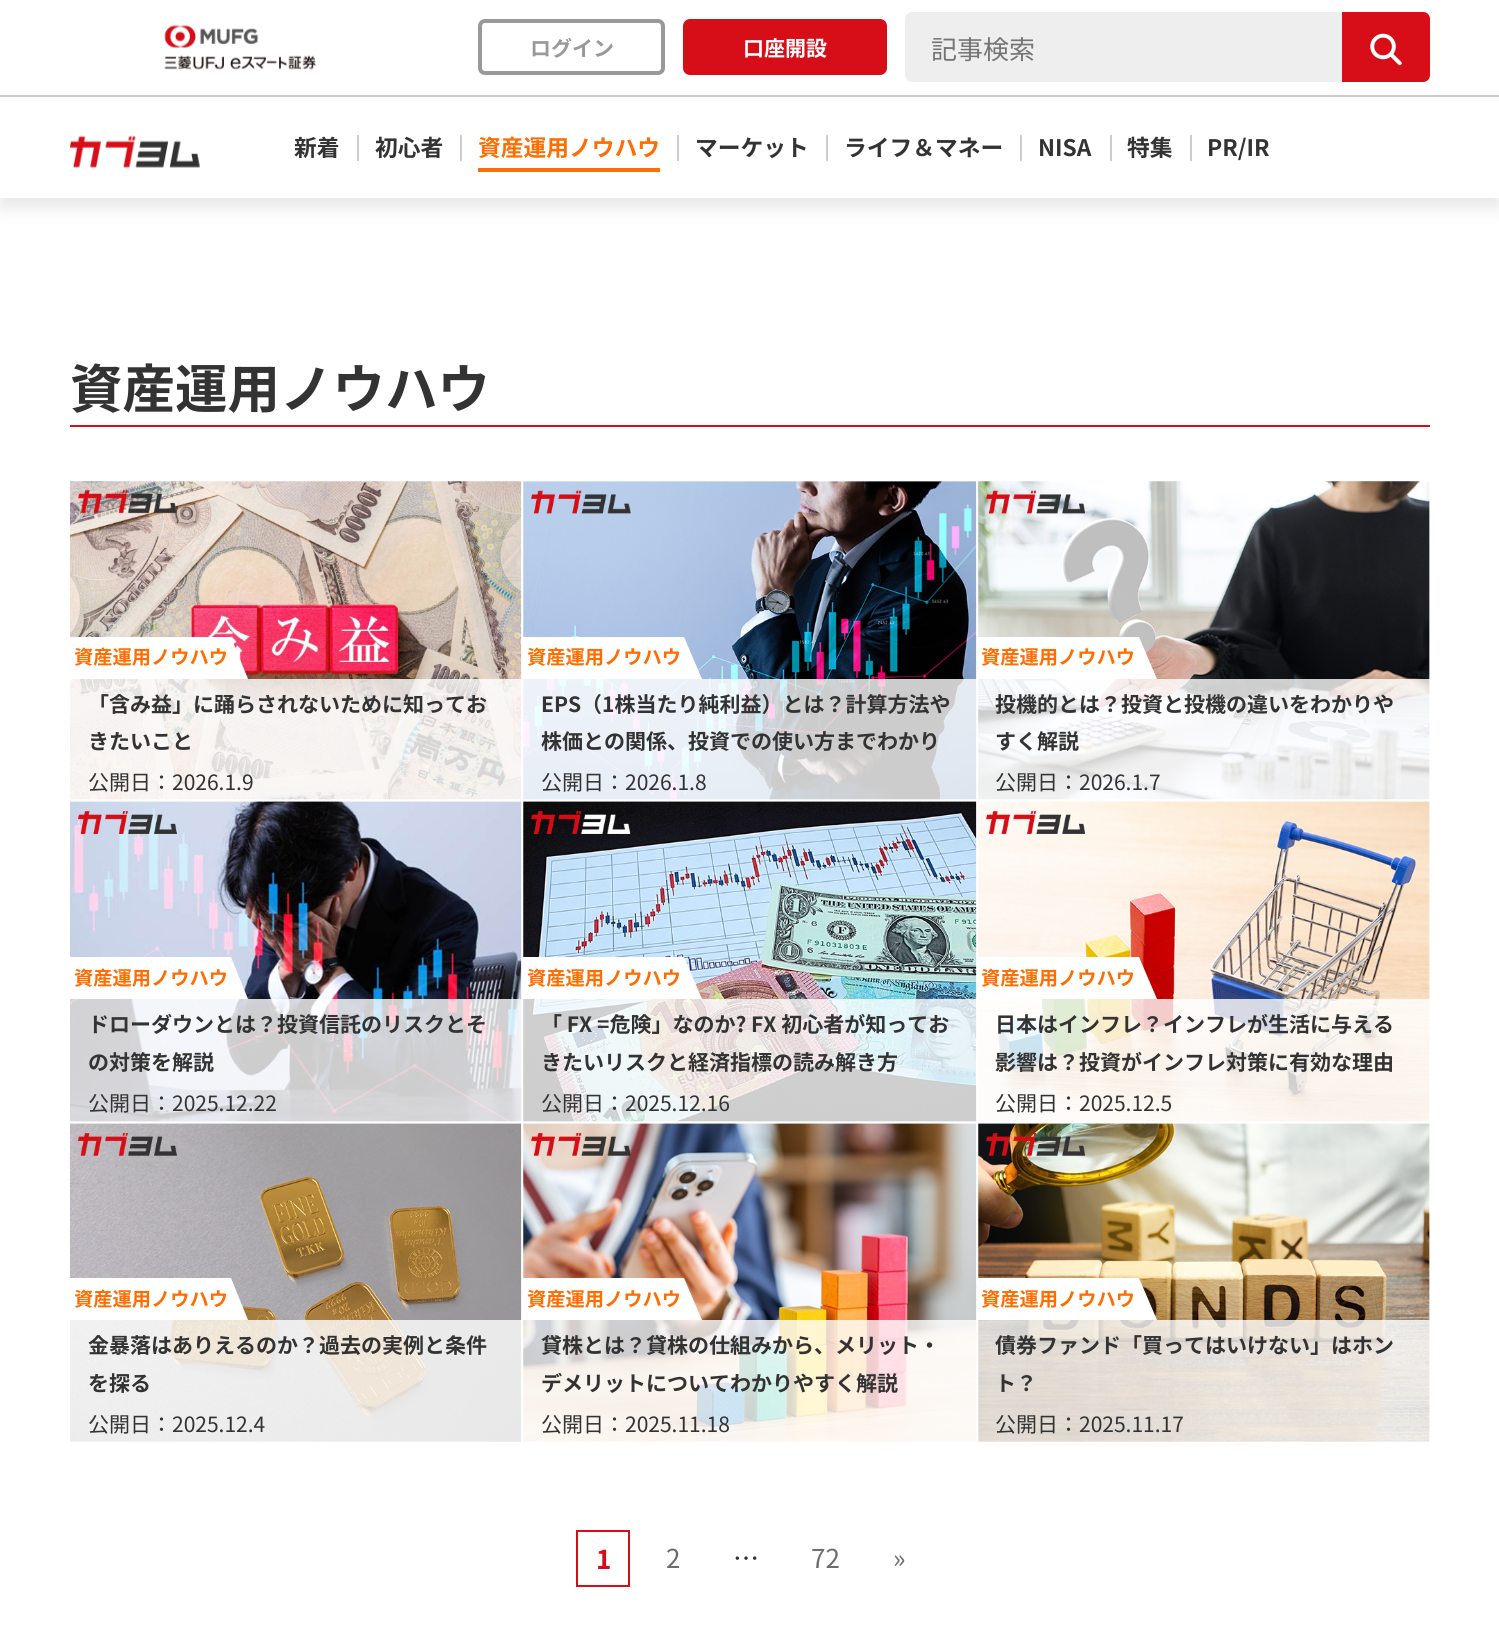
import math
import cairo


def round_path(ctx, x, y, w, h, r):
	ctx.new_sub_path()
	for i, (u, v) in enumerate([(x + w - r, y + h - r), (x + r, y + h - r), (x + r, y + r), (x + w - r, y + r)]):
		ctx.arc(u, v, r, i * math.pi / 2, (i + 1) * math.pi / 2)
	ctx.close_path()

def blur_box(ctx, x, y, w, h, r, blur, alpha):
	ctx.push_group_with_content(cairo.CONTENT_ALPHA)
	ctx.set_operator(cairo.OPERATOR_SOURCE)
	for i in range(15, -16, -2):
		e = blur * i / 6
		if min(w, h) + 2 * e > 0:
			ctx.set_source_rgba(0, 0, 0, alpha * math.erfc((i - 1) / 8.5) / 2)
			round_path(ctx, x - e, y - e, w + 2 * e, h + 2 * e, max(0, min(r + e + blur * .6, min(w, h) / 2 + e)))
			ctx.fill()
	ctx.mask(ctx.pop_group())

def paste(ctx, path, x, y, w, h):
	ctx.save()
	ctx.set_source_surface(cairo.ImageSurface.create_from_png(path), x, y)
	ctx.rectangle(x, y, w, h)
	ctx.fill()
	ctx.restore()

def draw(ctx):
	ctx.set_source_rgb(1, 1, 1)
	ctx.paint()
	ctx.set_source_rgb(0, 0, 0)
	blur_box(ctx, 0, 9, 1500, 198, 0, 9, 0.1)
	ctx.set_source_rgb(1, 1, 1)
	ctx.rectangle(0, 0, 1499, 198)
	ctx.fill()
	ctx.set_source_rgb(0.8, 0.8, 0.8)
	ctx.rectangle(0, 95, 1499, 2)
	ctx.fill()
	paste(ctx, 'media/1.png', 164, 24, 152, 46)
	round_path(ctx, 480, 21, 183, 52, 5)
	ctx.set_source_rgb(0.6, 0.6, 0.6)
	ctx.set_line_width(4)
	ctx.stroke()
	ctx.select_font_face('Noto Sans JP', cairo.FONT_SLANT_NORMAL, cairo.FONT_WEIGHT_BOLD)
	ctx.set_font_size(21)
	ctx.move_to(530, 56)
	ctx.show_text('ログイン')
	ctx.set_source_rgb(0.843, 0.051, 0.094)
	round_path(ctx, 683, 19, 204, 56, 7)
	ctx.fill()
	ctx.set_source_rgb(1, 1, 1)
	ctx.move_to(743, 56)
	ctx.show_text('口座開設')
	ctx.set_source_rgb(0.933, 0.933, 0.933)
	ctx.new_path()
	ctx.move_to(912, 12)
	ctx.line_to(1342, 12)
	ctx.line_to(1342, 82)
	ctx.line_to(912, 82)
	ctx.curve_to(908, 82, 905, 79, 905, 75)
	ctx.line_to(905, 19)
	ctx.curve_to(905, 15, 908, 12, 912, 12)
	ctx.close_path()
	ctx.fill()
	ctx.select_font_face('Noto Sans JP')
	ctx.set_font_size(26)
	ctx.set_source_rgb(0.459, 0.459, 0.459)
	ctx.move_to(931, 59)
	ctx.show_text('記事検索')
	ctx.set_source_rgb(0.843, 0.051, 0.094)
	ctx.new_path()
	ctx.move_to(1342, 12)
	ctx.line_to(1423, 12)
	ctx.curve_to(1427, 12, 1430, 15, 1430, 19)
	ctx.line_to(1430, 75)
	ctx.curve_to(1430, 79, 1427, 82, 1423, 82)
	ctx.line_to(1342, 82)
	ctx.close_path()
	ctx.fill()
	paste(ctx, 'media/2.png', 1370, 33, 32, 33)
	paste(ctx, 'media/3.png', 70, 135, 130, 33)
	ctx.select_font_face('Noto Sans JP', cairo.FONT_SLANT_NORMAL, cairo.FONT_WEIGHT_BOLD)
	ctx.set_font_size(22.75)
	ctx.set_source_rgb(0.2, 0.2, 0.2)
	ctx.move_to(294, 156)
	ctx.show_text('新着')
	ctx.set_source_rgb(0.8, 0.8, 0.8)
	ctx.rectangle(357, 135, 2, 26)
	ctx.fill()
	ctx.set_source_rgb(0.2, 0.2, 0.2)
	ctx.move_to(375, 156)
	ctx.show_text('初心者')
	ctx.set_source_rgb(0.8, 0.8, 0.8)
	ctx.rectangle(460, 135, 2, 26)
	ctx.fill()
	ctx.set_source_rgb(1, 0.424, 0)
	ctx.move_to(478, 156)
	ctx.show_text('資産運用ノウハウ')
	ctx.rectangle(478, 168, 182, 4)
	ctx.fill()
	ctx.set_source_rgb(0.8, 0.8, 0.8)
	ctx.rectangle(677, 135, 2, 26)
	ctx.fill()
	ctx.set_source_rgb(0.2, 0.2, 0.2)
	ctx.move_to(695, 156)
	ctx.show_text('マーケット')
	ctx.set_source_rgb(0.8, 0.8, 0.8)
	ctx.rectangle(826, 135, 2, 26)
	ctx.fill()
	ctx.set_source_rgb(0.2, 0.2, 0.2)
	ctx.move_to(844, 156)
	ctx.show_text('ライフ＆マネー')
	ctx.set_source_rgb(0.8, 0.8, 0.8)
	ctx.rectangle(1020, 135, 2, 26)
	ctx.fill()
	ctx.set_source_rgb(0.2, 0.2, 0.2)
	ctx.move_to(1038, 156)
	ctx.show_text('NISA')
	ctx.set_source_rgb(0.8, 0.8, 0.8)
	ctx.rectangle(1110, 135, 2, 26)
	ctx.fill()
	ctx.set_source_rgb(0.2, 0.2, 0.2)
	ctx.move_to(1127, 156)
	ctx.show_text('特集')
	ctx.set_source_rgb(0.8, 0.8, 0.8)
	ctx.rectangle(1190, 135, 2, 26)
	ctx.fill()
	ctx.set_source_rgb(0.2, 0.2, 0.2)
	ctx.move_to(1207, 156)
	ctx.show_text('PR/IR')
	ctx.set_source_rgb(0.843, 0.051, 0.094)
	ctx.rectangle(70, 425, 1360, 2)
	ctx.fill()
	ctx.set_font_size(52.5)
	ctx.set_source_rgb(0.2, 0.2, 0.2)
	ctx.move_to(70, 408)
	ctx.show_text('資産運用ノウハウ')
	paste(ctx, 'media/4.png', 70, 481, 452, 319)
	ctx.set_source_rgb(1, 1, 1)
	ctx.rectangle(70, 637, 161, 42)
	ctx.fill()
	ctx.set_font_size(19.25)
	ctx.set_source_rgb(1, 0.424, 0)
	ctx.move_to(74, 664)
	ctx.show_text('資産運用ノウハウ')
	ctx.set_source_rgb(1, 1, 1)
	ctx.new_path()
	ctx.move_to(231, 679)
	ctx.line_to(231, 637)
	ctx.line_to(248, 679)
	ctx.close_path()
	ctx.fill()
	ctx.set_source_rgba(1, 1, 1, 0.8)
	ctx.rectangle(70, 679, 452, 84)
	ctx.fill()
	ctx.set_font_size(21)
	ctx.set_source_rgb(0.2, 0.2, 0.2)
	ctx.move_to(88, 712)
	ctx.show_text('「含み益」に踊らされないために知ってお')
	ctx.move_to(88, 749)
	ctx.show_text('きたいこと')
	ctx.set_source_rgba(1, 1, 1, 0.8)
	ctx.rectangle(70, 763, 452, 37)
	ctx.fill()
	ctx.select_font_face('Noto Sans JP')
	ctx.set_source_rgb(0.2, 0.2, 0.2)
	ctx.move_to(88, 790)
	ctx.show_text('公開日：2026.1.9')
	paste(ctx, 'media/5.png', 523, 481, 454, 319)
	ctx.set_source_rgb(1, 1, 1)
	ctx.rectangle(523, 637, 161, 42)
	ctx.fill()
	ctx.select_font_face('Noto Sans JP', cairo.FONT_SLANT_NORMAL, cairo.FONT_WEIGHT_BOLD)
	ctx.set_font_size(19.25)
	ctx.set_source_rgb(1, 0.424, 0)
	ctx.move_to(527, 664)
	ctx.show_text('資産運用ノウハウ')
	ctx.set_source_rgb(1, 1, 1)
	ctx.new_path()
	ctx.move_to(684, 679)
	ctx.line_to(684, 637)
	ctx.line_to(702, 679)
	ctx.close_path()
	ctx.fill()
	ctx.set_source_rgba(1, 1, 1, 0.8)
	ctx.rectangle(523, 679, 454, 84)
	ctx.fill()
	ctx.set_font_size(21)
	ctx.set_source_rgb(0.2, 0.2, 0.2)
	ctx.move_to(541, 712)
	ctx.show_text('EPS（1株当たり純利益）とは？計算方法や')
	ctx.move_to(541, 749)
	ctx.show_text('株価との関係、投資での使い方までわかり')
	ctx.set_source_rgba(1, 1, 1, 0.8)
	ctx.rectangle(523, 763, 454, 37)
	ctx.fill()
	ctx.select_font_face('Noto Sans JP')
	ctx.set_source_rgb(0.2, 0.2, 0.2)
	ctx.move_to(541, 790)
	ctx.show_text('公開日：2026.1.8')
	paste(ctx, 'media/6.png', 978, 481, 452, 319)
	ctx.set_source_rgb(1, 1, 1)
	ctx.rectangle(978, 637, 161, 42)
	ctx.fill()
	ctx.select_font_face('Noto Sans JP', cairo.FONT_SLANT_NORMAL, cairo.FONT_WEIGHT_BOLD)
	ctx.set_font_size(19.25)
	ctx.set_source_rgb(1, 0.424, 0)
	ctx.move_to(981, 664)
	ctx.show_text('資産運用ノウハウ')
	ctx.set_source_rgb(1, 1, 1)
	ctx.new_path()
	ctx.move_to(1139, 679)
	ctx.line_to(1139, 637)
	ctx.line_to(1157, 679)
	ctx.close_path()
	ctx.fill()
	ctx.set_source_rgba(1, 1, 1, 0.8)
	ctx.rectangle(978, 679, 452, 84)
	ctx.fill()
	ctx.set_font_size(21)
	ctx.set_source_rgb(0.2, 0.2, 0.2)
	ctx.move_to(995, 712)
	ctx.show_text('投機的とは？投資と投機の違いをわかりや')
	ctx.move_to(995, 749)
	ctx.show_text('すく解説')
	ctx.set_source_rgba(1, 1, 1, 0.8)
	ctx.rectangle(978, 763, 452, 37)
	ctx.fill()
	ctx.select_font_face('Noto Sans JP')
	ctx.set_source_rgb(0.2, 0.2, 0.2)
	ctx.move_to(995, 790)
	ctx.show_text('公開日：2026.1.7')
	paste(ctx, 'media/7.png', 70, 801, 452, 321)
	ctx.set_source_rgb(1, 1, 1)
	ctx.rectangle(70, 957, 161, 42)
	ctx.fill()
	ctx.select_font_face('Noto Sans JP', cairo.FONT_SLANT_NORMAL, cairo.FONT_WEIGHT_BOLD)
	ctx.set_font_size(19.25)
	ctx.set_source_rgb(1, 0.424, 0)
	ctx.move_to(74, 985)
	ctx.show_text('資産運用ノウハウ')
	ctx.set_source_rgb(1, 1, 1)
	ctx.new_path()
	ctx.move_to(231, 999)
	ctx.line_to(231, 957)
	ctx.line_to(248, 999)
	ctx.close_path()
	ctx.fill()
	ctx.set_source_rgba(1, 1, 1, 0.8)
	ctx.rectangle(70, 999, 452, 84)
	ctx.fill()
	ctx.set_font_size(21)
	ctx.set_source_rgb(0.2, 0.2, 0.2)
	ctx.move_to(88, 1032)
	ctx.show_text('ドローダウンとは？投資信託のリスクとそ')
	ctx.move_to(88, 1070)
	ctx.show_text('の対策を解説')
	ctx.set_source_rgba(1, 1, 1, 0.8)
	ctx.rectangle(70, 1083, 452, 39)
	ctx.fill()
	ctx.select_font_face('Noto Sans JP')
	ctx.set_source_rgb(0.2, 0.2, 0.2)
	ctx.move_to(88, 1111)
	ctx.show_text('公開日：2025.12.22')
	paste(ctx, 'media/8.png', 523, 801, 454, 321)
	ctx.set_source_rgb(1, 1, 1)
	ctx.rectangle(523, 957, 161, 42)
	ctx.fill()
	ctx.select_font_face('Noto Sans JP', cairo.FONT_SLANT_NORMAL, cairo.FONT_WEIGHT_BOLD)
	ctx.set_font_size(19.25)
	ctx.set_source_rgb(1, 0.424, 0)
	ctx.move_to(527, 985)
	ctx.show_text('資産運用ノウハウ')
	ctx.set_source_rgb(1, 1, 1)
	ctx.new_path()
	ctx.move_to(684, 999)
	ctx.line_to(684, 957)
	ctx.line_to(702, 999)
	ctx.close_path()
	ctx.fill()
	ctx.set_source_rgba(1, 1, 1, 0.8)
	ctx.rectangle(523, 999, 454, 84)
	ctx.fill()
	ctx.set_font_size(21)
	ctx.set_source_rgb(0.2, 0.2, 0.2)
	ctx.move_to(541, 1032)
	ctx.show_text('「 FX =危険」なのか? FX 初心者が知ってお')
	ctx.move_to(541, 1070)
	ctx.show_text('きたいリスクと経済指標の読み解き方')
	ctx.set_source_rgba(1, 1, 1, 0.8)
	ctx.rectangle(523, 1083, 454, 39)
	ctx.fill()
	ctx.select_font_face('Noto Sans JP')
	ctx.set_source_rgb(0.2, 0.2, 0.2)
	ctx.move_to(541, 1111)
	ctx.show_text('公開日：2025.12.16')
	paste(ctx, 'media/9.png', 978, 801, 452, 321)
	ctx.set_source_rgb(1, 1, 1)
	ctx.rectangle(978, 957, 161, 42)
	ctx.fill()
	ctx.select_font_face('Noto Sans JP', cairo.FONT_SLANT_NORMAL, cairo.FONT_WEIGHT_BOLD)
	ctx.set_font_size(19.25)
	ctx.set_source_rgb(1, 0.424, 0)
	ctx.move_to(981, 985)
	ctx.show_text('資産運用ノウハウ')
	ctx.set_source_rgb(1, 1, 1)
	ctx.new_path()
	ctx.move_to(1139, 999)
	ctx.line_to(1139, 957)
	ctx.line_to(1157, 999)
	ctx.close_path()
	ctx.fill()
	ctx.set_source_rgba(1, 1, 1, 0.8)
	ctx.rectangle(978, 999, 452, 84)
	ctx.fill()
	ctx.set_font_size(21)
	ctx.set_source_rgb(0.2, 0.2, 0.2)
	ctx.move_to(995, 1032)
	ctx.show_text('日本はインフレ？インフレが生活に与える')
	ctx.move_to(995, 1070)
	ctx.show_text('影響は？投資がインフレ対策に有効な理由')
	ctx.set_source_rgba(1, 1, 1, 0.8)
	ctx.rectangle(978, 1083, 452, 39)
	ctx.fill()
	ctx.select_font_face('Noto Sans JP')
	ctx.set_source_rgb(0.2, 0.2, 0.2)
	ctx.move_to(995, 1111)
	ctx.show_text('公開日：2025.12.5')
	paste(ctx, 'media/10.png', 70, 1123, 452, 319)
	ctx.set_source_rgb(1, 1, 1)
	ctx.rectangle(70, 1278, 161, 42)
	ctx.fill()
	ctx.select_font_face('Noto Sans JP', cairo.FONT_SLANT_NORMAL, cairo.FONT_WEIGHT_BOLD)
	ctx.set_font_size(19.25)
	ctx.set_source_rgb(1, 0.424, 0)
	ctx.move_to(74, 1306)
	ctx.show_text('資産運用ノウハウ')
	ctx.set_source_rgb(1, 1, 1)
	ctx.new_path()
	ctx.move_to(231, 1320)
	ctx.line_to(231, 1278)
	ctx.line_to(248, 1320)
	ctx.close_path()
	ctx.fill()
	ctx.set_source_rgba(1, 1, 1, 0.8)
	ctx.rectangle(70, 1320, 452, 84)
	ctx.fill()
	ctx.set_font_size(21)
	ctx.set_source_rgb(0.2, 0.2, 0.2)
	ctx.move_to(88, 1353)
	ctx.show_text('金暴落はありえるのか？過去の実例と条件')
	ctx.move_to(88, 1391)
	ctx.show_text('を探る')
	ctx.set_source_rgba(1, 1, 1, 0.8)
	ctx.rectangle(70, 1404, 452, 38)
	ctx.fill()
	ctx.select_font_face('Noto Sans JP')
	ctx.set_source_rgb(0.2, 0.2, 0.2)
	ctx.move_to(88, 1432)
	ctx.show_text('公開日：2025.12.4')
	paste(ctx, 'media/11.png', 523, 1123, 454, 319)
	ctx.set_source_rgb(1, 1, 1)
	ctx.rectangle(523, 1278, 161, 42)
	ctx.fill()
	ctx.select_font_face('Noto Sans JP', cairo.FONT_SLANT_NORMAL, cairo.FONT_WEIGHT_BOLD)
	ctx.set_font_size(19.25)
	ctx.set_source_rgb(1, 0.424, 0)
	ctx.move_to(527, 1306)
	ctx.show_text('資産運用ノウハウ')
	ctx.set_source_rgb(1, 1, 1)
	ctx.new_path()
	ctx.move_to(684, 1320)
	ctx.line_to(684, 1278)
	ctx.line_to(702, 1320)
	ctx.close_path()
	ctx.fill()
	ctx.set_source_rgba(1, 1, 1, 0.8)
	ctx.rectangle(523, 1320, 454, 84)
	ctx.fill()
	ctx.set_font_size(21)
	ctx.set_source_rgb(0.2, 0.2, 0.2)
	ctx.move_to(541, 1353)
	ctx.show_text('貸株とは？貸株の仕組みから、メリット・')
	ctx.move_to(541, 1391)
	ctx.show_text('デメリットについてわかりやすく解説')
	ctx.set_source_rgba(1, 1, 1, 0.8)
	ctx.rectangle(523, 1404, 454, 38)
	ctx.fill()
	ctx.select_font_face('Noto Sans JP')
	ctx.set_source_rgb(0.2, 0.2, 0.2)
	ctx.move_to(541, 1432)
	ctx.show_text('公開日：2025.11.18')
	paste(ctx, 'media/12.png', 978, 1123, 452, 319)
	ctx.set_source_rgb(1, 1, 1)
	ctx.rectangle(978, 1278, 161, 42)
	ctx.fill()
	ctx.select_font_face('Noto Sans JP', cairo.FONT_SLANT_NORMAL, cairo.FONT_WEIGHT_BOLD)
	ctx.set_font_size(19.25)
	ctx.set_source_rgb(1, 0.424, 0)
	ctx.move_to(981, 1306)
	ctx.show_text('資産運用ノウハウ')
	ctx.set_source_rgb(1, 1, 1)
	ctx.new_path()
	ctx.move_to(1139, 1320)
	ctx.line_to(1139, 1278)
	ctx.line_to(1157, 1320)
	ctx.close_path()
	ctx.fill()
	ctx.set_source_rgba(1, 1, 1, 0.8)
	ctx.rectangle(978, 1320, 452, 84)
	ctx.fill()
	ctx.set_font_size(21)
	ctx.set_source_rgb(0.2, 0.2, 0.2)
	ctx.move_to(995, 1353)
	ctx.show_text('債券ファンド「買ってはいけない」はホン')
	ctx.move_to(995, 1391)
	ctx.show_text('ト？')
	ctx.set_source_rgba(1, 1, 1, 0.8)
	ctx.rectangle(978, 1404, 452, 38)
	ctx.fill()
	ctx.select_font_face('Noto Sans JP')
	ctx.set_source_rgb(0.2, 0.2, 0.2)
	ctx.move_to(995, 1432)
	ctx.show_text('公開日：2025.11.17')
	ctx.rectangle(577, 1531, 52, 55)
	ctx.set_source_rgb(0.843, 0.047, 0.094)
	ctx.set_line_width(2)
	ctx.stroke()
	ctx.select_font_face('Noto Sans JP', cairo.FONT_SLANT_NORMAL, cairo.FONT_WEIGHT_BOLD)
	ctx.set_font_size(26)
	ctx.move_to(596, 1569)
	ctx.show_text('1')
	ctx.select_font_face('Noto Sans JP')
	ctx.set_source_rgb(0.427, 0.427, 0.427)
	ctx.move_to(666, 1568)
	ctx.show_text('2')
	ctx.set_source_rgb(0.2, 0.2, 0.2)
	ctx.move_to(733, 1568)
	ctx.show_text('…')
	ctx.set_source_rgb(0.427, 0.427, 0.427)
	ctx.move_to(811, 1568)
	ctx.show_text('72')
	ctx.move_to(893, 1568)
	ctx.show_text('»')


surface = cairo.ImageSurface(cairo.FORMAT_RGB24, 1499, 1641)
ctx = cairo.Context(surface)
options = cairo.FontOptions()
options.set_hint_metrics(cairo.HINT_METRICS_OFF)
options.set_hint_style(cairo.HINT_STYLE_NONE)
ctx.set_font_options(options)
ctx.set_miter_limit(4)
draw(ctx)
surface.write_to_png('image.png')
